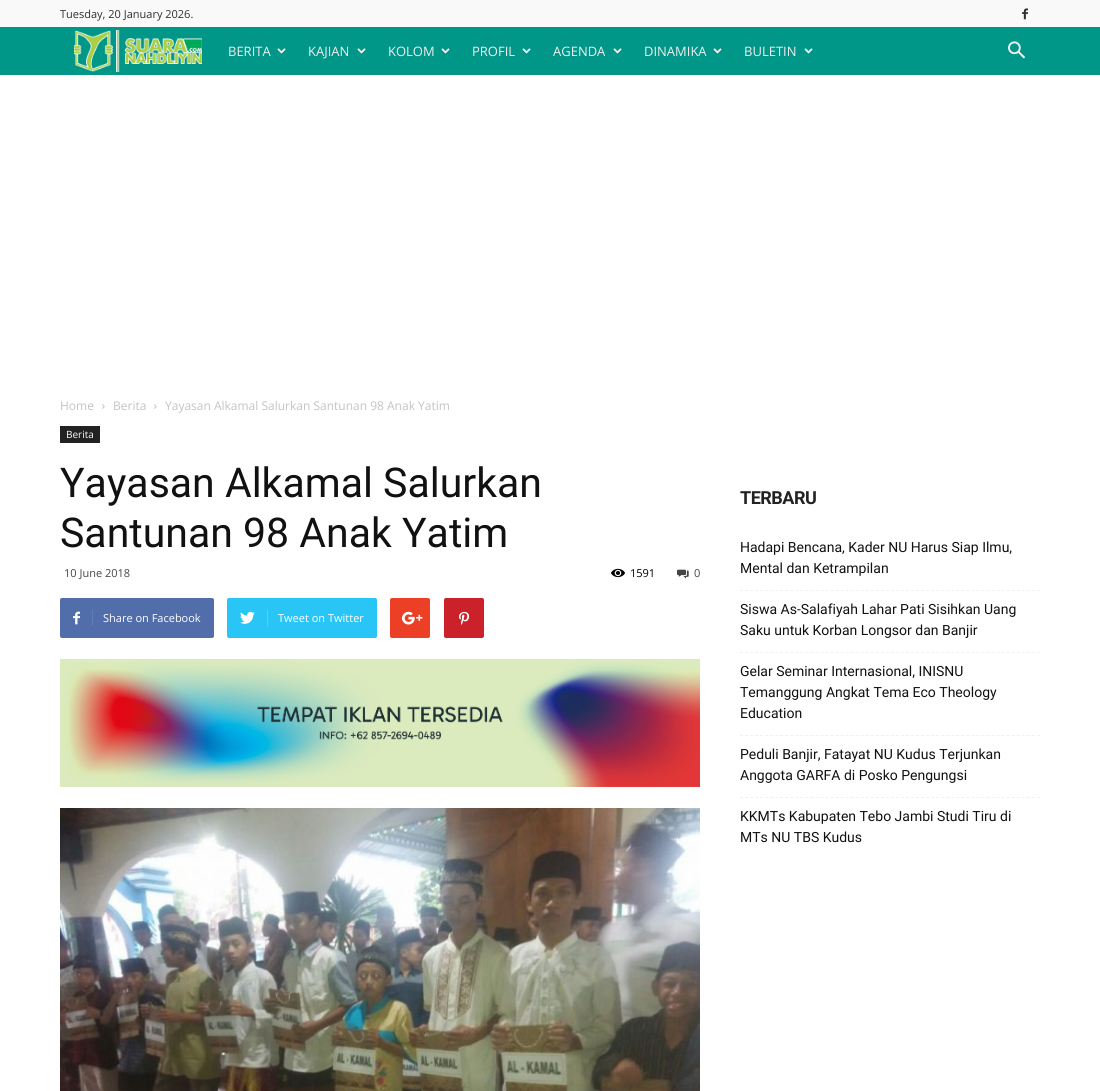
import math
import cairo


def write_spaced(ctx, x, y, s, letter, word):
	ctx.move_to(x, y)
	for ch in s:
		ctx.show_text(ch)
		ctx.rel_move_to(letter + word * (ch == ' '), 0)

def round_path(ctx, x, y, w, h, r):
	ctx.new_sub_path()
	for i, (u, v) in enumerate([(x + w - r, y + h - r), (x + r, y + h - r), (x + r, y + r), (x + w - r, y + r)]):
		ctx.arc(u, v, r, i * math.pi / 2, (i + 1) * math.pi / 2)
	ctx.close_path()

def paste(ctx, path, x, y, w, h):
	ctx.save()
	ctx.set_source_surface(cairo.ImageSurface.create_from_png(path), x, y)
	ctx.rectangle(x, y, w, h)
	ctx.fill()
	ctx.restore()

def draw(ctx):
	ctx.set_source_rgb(1, 1, 1)
	ctx.paint()
	ctx.set_source_rgb(0.976, 0.976, 0.976)
	ctx.rectangle(0, 0, 1100, 27)
	ctx.fill()
	ctx.select_font_face('Open Sans')
	ctx.set_font_size(11)
	ctx.set_source_rgb(0.184, 0.184, 0.184)
	ctx.move_to(60, 18)
	ctx.show_text('Tuesday, 20 January 2026.')
	paste(ctx, 'media/1.png', 1022, 8, 6, 12)
	ctx.set_source_rgb(0, 0.588, 0.533)
	ctx.rectangle(0, 27, 1100, 48)
	ctx.fill()
	paste(ctx, 'media/2.png', 74, 30, 128, 42)
	ctx.set_font_size(13)
	ctx.set_source_rgb(0.937, 0.937, 0.937)
	ctx.move_to(228, 56)
	ctx.show_text('BERITA')
	paste(ctx, 'media/3.png', 277, 48, 9, 6)
	ctx.move_to(308, 56)
	ctx.show_text('KAJIAN')
	paste(ctx, 'media/3.png', 357, 48, 9, 6)
	ctx.move_to(388, 56)
	ctx.show_text('KOLOM')
	paste(ctx, 'media/3.png', 441, 48, 9, 6)
	ctx.move_to(472, 56)
	ctx.show_text('PROFIL')
	paste(ctx, 'media/3.png', 522, 48, 9, 6)
	ctx.move_to(553, 56)
	ctx.show_text('AGENDA')
	paste(ctx, 'media/3.png', 613, 48, 9, 6)
	ctx.move_to(644, 56)
	ctx.show_text('DINAMIKA')
	paste(ctx, 'media/3.png', 713, 48, 9, 6)
	ctx.move_to(744, 56)
	ctx.show_text('BULETIN')
	paste(ctx, 'media/3.png', 804, 48, 9, 6)
	paste(ctx, 'media/4.png', 1008, 41, 17, 18)
	ctx.set_font_size(12)
	ctx.set_source_rgb(0.765, 0.765, 0.765)
	ctx.move_to(60, 410)
	ctx.show_text('Home')
	paste(ctx, 'media/5.png', 102, 404, 3, 5)
	ctx.move_to(113, 410)
	ctx.show_text('Berita')
	paste(ctx, 'media/5.png', 154, 404, 3, 5)
	ctx.move_to(165, 410)
	ctx.show_text('Yayasan Alkamal Salurkan Santunan 98 Anak Yatim')
	ctx.set_source_rgb(0.133, 0.133, 0.133)
	ctx.rectangle(60, 426, 40, 17)
	ctx.fill()
	ctx.set_font_size(10)
	ctx.set_source_rgb(1, 1, 1)
	ctx.move_to(66, 438)
	ctx.show_text('Berita')
	ctx.select_font_face('Roboto')
	ctx.set_font_size(41)
	ctx.set_source_rgb(0.067, 0.067, 0.067)
	ctx.move_to(60, 497)
	ctx.show_text('Yayasan Alkamal Salurkan')
	ctx.move_to(60, 547)
	ctx.show_text('Santunan 98 Anak Yatim')
	ctx.select_font_face('Open Sans')
	ctx.set_font_size(11)
	ctx.set_source_rgb(0.267, 0.267, 0.267)
	ctx.move_to(64, 577)
	ctx.show_text('10 June 2018')
	paste(ctx, 'media/6.png', 611, 568, 14, 10)
	ctx.set_source_rgb(0, 0, 0)
	ctx.move_to(630, 577)
	ctx.show_text('1591')
	paste(ctx, 'media/7.png', 677, 569, 12, 10)
	ctx.set_source_rgb(0.267, 0.267, 0.267)
	ctx.move_to(694, 577)
	ctx.show_text('0')
	ctx.set_source_rgb(0.318, 0.431, 0.671)
	round_path(ctx, 60, 598, 154, 40, 2)
	ctx.fill()
	paste(ctx, 'media/8.png', 73, 611, 7, 14)
	ctx.set_source_rgb(0.384, 0.49, 0.702)
	ctx.rectangle(92, 610, 1, 16)
	ctx.fill()
	ctx.set_source_rgb(1, 1, 1)
	ctx.move_to(103, 622)
	ctx.show_text('Share on Facebook')
	ctx.set_source_rgb(0.161, 0.773, 0.965)
	round_path(ctx, 227, 598, 150, 40, 2)
	ctx.fill()
	paste(ctx, 'media/9.png', 240, 611, 15, 13)
	ctx.set_source_rgb(0.329, 0.82, 0.973)
	ctx.rectangle(267, 610, 1, 16)
	ctx.fill()
	ctx.set_source_rgb(1, 1, 1)
	ctx.move_to(278, 622)
	ctx.show_text('Tweet on Twitter')
	ctx.set_source_rgb(0.922, 0.251, 0.149)
	round_path(ctx, 390, 598, 40, 40, 2)
	ctx.fill()
	paste(ctx, 'media/10.png', 402, 611, 21, 14)
	ctx.set_source_rgb(0.792, 0.129, 0.165)
	round_path(ctx, 444, 598, 40, 40, 2)
	ctx.fill()
	paste(ctx, 'media/11.png', 459, 611, 11, 14)
	paste(ctx, 'media/12.png', 60, 659, 640, 128)
	paste(ctx, 'media/13.png', 60, 808, 640, 283)
	ctx.select_font_face('Roboto', cairo.FONT_SLANT_NORMAL, cairo.FONT_WEIGHT_BOLD)
	ctx.set_font_size(18)
	ctx.set_source_rgb(0.133, 0.133, 0.133)
	write_spaced(ctx, 740, 504, 'TERBARU', -0.5, 0)
	ctx.new_path()
	ctx.move_to(740, 590.5)
	ctx.line_to(1040, 590.5)
	ctx.set_source_rgb(0.945, 0.945, 0.945)
	ctx.set_line_width(1)
	ctx.set_dash([3, 2.03])
	ctx.stroke()
	ctx.select_font_face('Roboto')
	ctx.set_font_size(14)
	ctx.set_source_rgb(0.067, 0.067, 0.067)
	ctx.move_to(740, 552)
	ctx.show_text('Hadapi Bencana, Kader NU Harus Siap Ilmu,')
	ctx.move_to(740, 573)
	ctx.show_text('Mental dan Ketrampilan')
	ctx.new_path()
	ctx.move_to(740, 652.5)
	ctx.line_to(1040, 652.5)
	ctx.set_source_rgb(0.945, 0.945, 0.945)
	ctx.stroke()
	ctx.set_source_rgb(0.067, 0.067, 0.067)
	ctx.move_to(740, 614)
	ctx.show_text('Siswa As-Salafiyah Lahar Pati Sisihkan Uang')
	ctx.move_to(740, 635)
	ctx.show_text('Saku untuk Korban Longsor dan Banjir')
	ctx.new_path()
	ctx.move_to(740, 735.5)
	ctx.line_to(1040, 735.5)
	ctx.set_source_rgb(0.945, 0.945, 0.945)
	ctx.stroke()
	ctx.set_source_rgb(0.067, 0.067, 0.067)
	for x, y, s in [
		(740, 676, 'Gelar Seminar Internasional, INISNU'),
		(740, 697, 'Temanggung Angkat Tema Eco Theology'),
		(740, 718, 'Education'),
	]:
		ctx.move_to(x, y)
		ctx.show_text(s)
	ctx.new_path()
	ctx.move_to(740, 797.5)
	ctx.line_to(1040, 797.5)
	ctx.set_source_rgb(0.945, 0.945, 0.945)
	ctx.stroke()
	ctx.set_source_rgb(0.067, 0.067, 0.067)
	for x, y, s in [
		(740, 759, 'Peduli Banjir, Fatayat NU Kudus Terjunkan'),
		(740, 780, 'Anggota GARFA di Posko Pengungsi'),
		(740, 821, 'KKMTs Kabupaten Tebo Jambi Studi Tiru di'),
		(740, 842, 'MTs NU TBS Kudus'),
	]:
		ctx.move_to(x, y)
		ctx.show_text(s)


surface = cairo.ImageSurface(cairo.FORMAT_RGB24, 1100, 1091)
ctx = cairo.Context(surface)
options = cairo.FontOptions()
options.set_hint_metrics(cairo.HINT_METRICS_OFF)
options.set_hint_style(cairo.HINT_STYLE_NONE)
ctx.set_font_options(options)
ctx.set_miter_limit(4)
draw(ctx)
surface.write_to_png('image.png')
